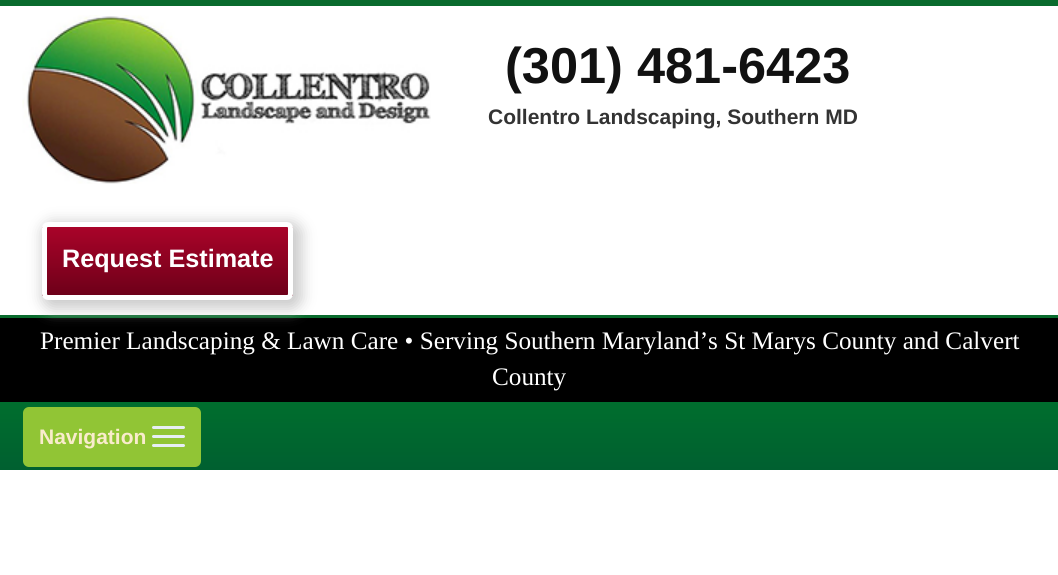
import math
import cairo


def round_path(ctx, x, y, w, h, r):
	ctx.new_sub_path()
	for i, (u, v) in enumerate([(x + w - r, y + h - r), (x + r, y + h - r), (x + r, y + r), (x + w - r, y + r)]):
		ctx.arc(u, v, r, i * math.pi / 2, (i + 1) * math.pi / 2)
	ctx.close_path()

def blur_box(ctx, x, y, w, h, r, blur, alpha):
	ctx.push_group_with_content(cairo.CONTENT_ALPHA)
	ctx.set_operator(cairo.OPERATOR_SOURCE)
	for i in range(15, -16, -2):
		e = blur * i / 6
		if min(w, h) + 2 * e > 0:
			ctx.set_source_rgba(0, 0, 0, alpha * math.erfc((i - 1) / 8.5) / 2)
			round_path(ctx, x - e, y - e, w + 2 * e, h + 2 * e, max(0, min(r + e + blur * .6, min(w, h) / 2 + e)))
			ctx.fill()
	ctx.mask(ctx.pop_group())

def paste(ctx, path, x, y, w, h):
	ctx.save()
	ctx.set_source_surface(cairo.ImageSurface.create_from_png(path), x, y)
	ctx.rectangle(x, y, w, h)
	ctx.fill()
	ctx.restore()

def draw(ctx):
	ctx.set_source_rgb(1, 1, 1)
	ctx.paint()
	ctx.set_source_rgb(0.039, 0.42, 0.176)
	ctx.rectangle(0, 0, 1058, 6)
	ctx.fill()
	paste(ctx, 'media/1.png', 22, 15, 409, 169)
	ctx.select_font_face('Liberation Sans', cairo.FONT_SLANT_NORMAL, cairo.FONT_WEIGHT_BOLD)
	ctx.set_font_size(50.5)
	ctx.set_source_rgb(0.067, 0.067, 0.067)
	ctx.move_to(505, 83)
	ctx.show_text('(301) 481-6423')
	ctx.set_font_size(21)
	ctx.set_source_rgb(0.2, 0.2, 0.2)
	ctx.move_to(488, 124)
	ctx.show_text('Collentro Landscaping, Southern MD')
	ctx.set_source_rgb(0, 0, 0)
	ctx.rectangle(0, 318, 1058, 84)
	ctx.fill()
	ctx.set_source_rgb(0.039, 0.42, 0.176)
	ctx.rectangle(0, 315, 1058, 3)
	ctx.fill()
	ctx.set_source_rgb(0.8, 0.8, 0.8)
	blur_box(ctx, 42, 222, 260, 87, 11, 7, 1)
	gradient = cairo.LinearGradient(167, 227, 167, 296)
	gradient.add_color_stop_rgba(0, 0.663, 0.012, 0.161, 1)
	gradient.add_color_stop_rgba(0.44, 0.561, 0.008, 0.133, 1)
	gradient.add_color_stop_rgba(1, 0.427, 0, 0.098, 1)
	ctx.set_source(gradient)
	ctx.rectangle(42, 227, 251, 69)
	ctx.fill()
	round_path(ctx, 44.5, 224.5, 246, 73, 3.5)
	ctx.set_source_rgb(1, 1, 1)
	ctx.set_line_width(5)
	ctx.stroke()
	ctx.set_font_size(25.2)
	ctx.move_to(62, 267)
	ctx.show_text('Request Estimate')
	ctx.select_font_face('Liberation Serif')
	ctx.move_to(40, 349)
	ctx.show_text('Premier Landscaping & Lawn Care • Serving Southern Maryland’s St Marys County and Calvert')
	ctx.move_to(492, 385)
	ctx.show_text('County')
	gradient = cairo.LinearGradient(530, 402, 530, 470)
	gradient.add_color_stop_rgba(0, 0, 0.431, 0.18, 1)
	gradient.add_color_stop_rgba(1, 0, 0.376, 0.188, 1)
	ctx.set_source(gradient)
	ctx.rectangle(0, 402, 1058, 68)
	ctx.fill()
	ctx.set_source_rgb(0.569, 0.773, 0.208)
	round_path(ctx, 23, 407, 178, 60, 6)
	ctx.fill()
	ctx.select_font_face('Liberation Sans', cairo.FONT_SLANT_NORMAL, cairo.FONT_WEIGHT_BOLD)
	ctx.set_font_size(21)
	ctx.set_source_rgb(0.976, 0.925, 0.8)
	ctx.move_to(39, 444)
	ctx.show_text('Navigation')
	ctx.set_source_rgb(0.906, 0.933, 0.957)
	round_path(ctx, 152, 426, 33, 3, 1.5)
	ctx.fill()
	round_path(ctx, 152, 435, 33, 3, 1.5)
	ctx.fill()
	round_path(ctx, 152, 444, 33, 3, 1.5)
	ctx.fill()


surface = cairo.ImageSurface(cairo.FORMAT_RGB24, 1058, 575)
ctx = cairo.Context(surface)
options = cairo.FontOptions()
options.set_hint_metrics(cairo.HINT_METRICS_OFF)
options.set_hint_style(cairo.HINT_STYLE_NONE)
ctx.set_font_options(options)
ctx.set_miter_limit(4)
draw(ctx)
surface.write_to_png('image.png')
